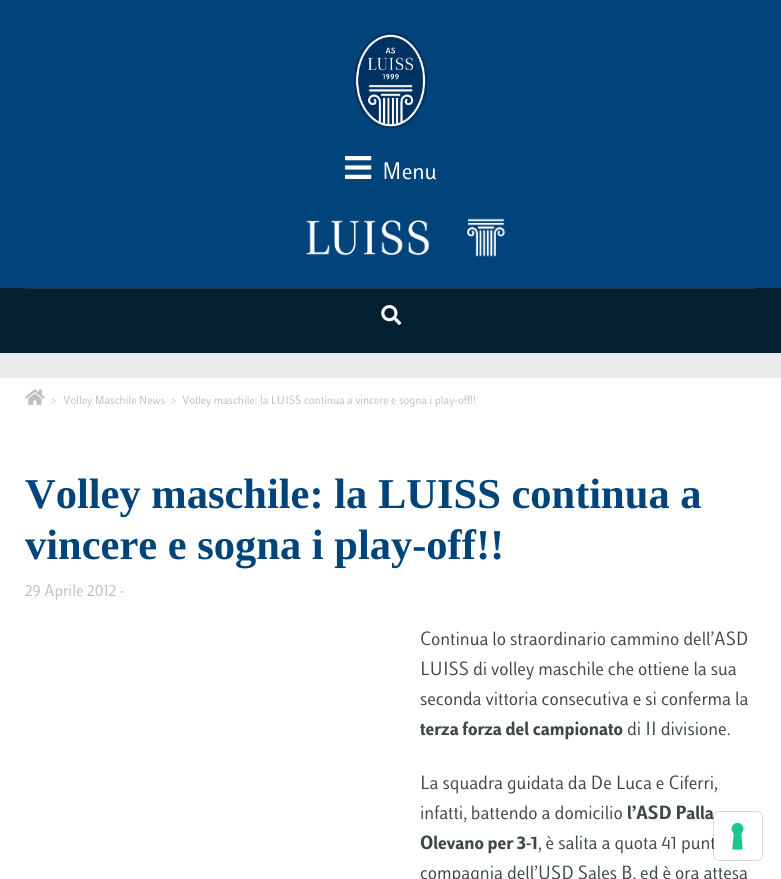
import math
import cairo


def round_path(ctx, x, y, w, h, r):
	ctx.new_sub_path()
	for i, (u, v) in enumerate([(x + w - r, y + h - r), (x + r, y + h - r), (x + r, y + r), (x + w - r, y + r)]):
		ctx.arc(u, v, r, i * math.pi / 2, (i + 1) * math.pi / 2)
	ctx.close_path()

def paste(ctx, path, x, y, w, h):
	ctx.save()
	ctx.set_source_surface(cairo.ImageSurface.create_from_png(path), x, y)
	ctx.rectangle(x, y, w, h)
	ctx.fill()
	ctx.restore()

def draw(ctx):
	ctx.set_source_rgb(1, 1, 1)
	ctx.paint()
	ctx.set_source_rgb(0.004, 0.267, 0.482)
	ctx.rectangle(0, 0, 781, 288)
	ctx.fill()
	paste(ctx, 'media/1.png', 353, 32, 75, 97)
	paste(ctx, 'media/2.png', 345, 156, 27, 23)
	ctx.select_font_face('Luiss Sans')
	ctx.set_font_size(25)
	ctx.set_source_rgb(1, 1, 1)
	ctx.move_to(382, 179)
	ctx.show_text('Menu')
	paste(ctx, 'media/3.png', 306, 218, 199, 39)
	ctx.set_source_rgb(0.008, 0.125, 0.188)
	ctx.rectangle(0, 288, 781, 65)
	ctx.fill()
	ctx.set_source_rgb(0.106, 0.212, 0.271)
	ctx.rectangle(25, 288, 731, 1)
	ctx.fill()
	paste(ctx, 'media/4.png', 381, 305, 21, 20)
	ctx.set_source_rgb(0.918, 0.918, 0.918)
	ctx.rectangle(0, 353, 781, 25)
	ctx.fill()
	paste(ctx, 'media/5.png', 25, 389, 20, 16)
	ctx.set_font_size(12.5)
	ctx.set_source_rgb(0.741, 0.741, 0.741)
	for x, y, s in [
		(51, 404, '>'),
		(63, 404, 'Volley Maschile News'),
		(171, 404, '>'),
		(182, 404, 'Volley maschile: la LUISS continua a vincere e sogna i play-off!!'),
	]:
		ctx.move_to(x, y)
		ctx.show_text(s)
	ctx.select_font_face('Liberation Serif', cairo.FONT_SLANT_NORMAL, cairo.FONT_WEIGHT_BOLD)
	ctx.set_font_size(42.5)
	ctx.set_source_rgb(0, 0.267, 0.478)
	ctx.move_to(25, 508)
	ctx.show_text('Volley maschile: la LUISS continua a')
	ctx.move_to(25, 559)
	ctx.show_text('vincere e sogna i play-off!!')
	ctx.select_font_face('Luiss Sans')
	ctx.set_font_size(17.5)
	ctx.set_source_rgb(0.741, 0.741, 0.741)
	ctx.move_to(25, 596)
	ctx.show_text('29 Aprile 2012 -')
	ctx.set_font_size(20)
	ctx.set_source_rgb(0.239, 0.286, 0.259)
	for x, y, s in [
		(420, 645, 'Continua lo straordinario cammino dell’ASD'),
		(420, 675, 'LUISS di volley maschile che ottiene la sua'),
		(420, 705, 'seconda vittoria consecutiva e si conferma la'),
	]:
		ctx.move_to(x, y)
		ctx.show_text(s)
	ctx.select_font_face('Luiss Sans', cairo.FONT_SLANT_NORMAL, cairo.FONT_WEIGHT_BOLD)
	ctx.move_to(420, 735)
	ctx.show_text('terza forza del campionato')
	ctx.select_font_face('Luiss Sans')
	for x, y, s in [
		(627, 735, 'di II divisione.'),
		(420, 789, 'La squadra guidata da De Luca e Ciferri,'),
		(420, 819, 'infatti, battendo a domicilio'),
	]:
		ctx.move_to(x, y)
		ctx.show_text(s)
	ctx.select_font_face('Luiss Sans', cairo.FONT_SLANT_NORMAL, cairo.FONT_WEIGHT_BOLD)
	ctx.move_to(627, 819)
	ctx.show_text('l’ASD Palla')
	ctx.move_to(420, 849)
	ctx.show_text('Olevano per 3-1')
	ctx.select_font_face('Luiss Sans')
	ctx.move_to(538, 849)
	ctx.show_text(', è salita a quota 41 punt')
	ctx.move_to(420, 879)
	ctx.show_text('compagnia dell’USD Sales B, ed è ora attesa')
	round_path(ctx, 713.5, 811.5, 49, 49, 5.5)
	ctx.set_source_rgba(0, 0, 0, 0.15)
	ctx.set_line_width(1)
	ctx.stroke()
	ctx.set_source_rgb(1, 1, 1)
	round_path(ctx, 714, 813, 47, 47, 5)
	ctx.fill()
	paste(ctx, 'media/6.png', 731, 822, 13, 28)


surface = cairo.ImageSurface(cairo.FORMAT_RGB24, 781, 879)
ctx = cairo.Context(surface)
options = cairo.FontOptions()
options.set_hint_metrics(cairo.HINT_METRICS_OFF)
options.set_hint_style(cairo.HINT_STYLE_NONE)
ctx.set_font_options(options)
ctx.set_miter_limit(4)
draw(ctx)
surface.write_to_png('image.png')
